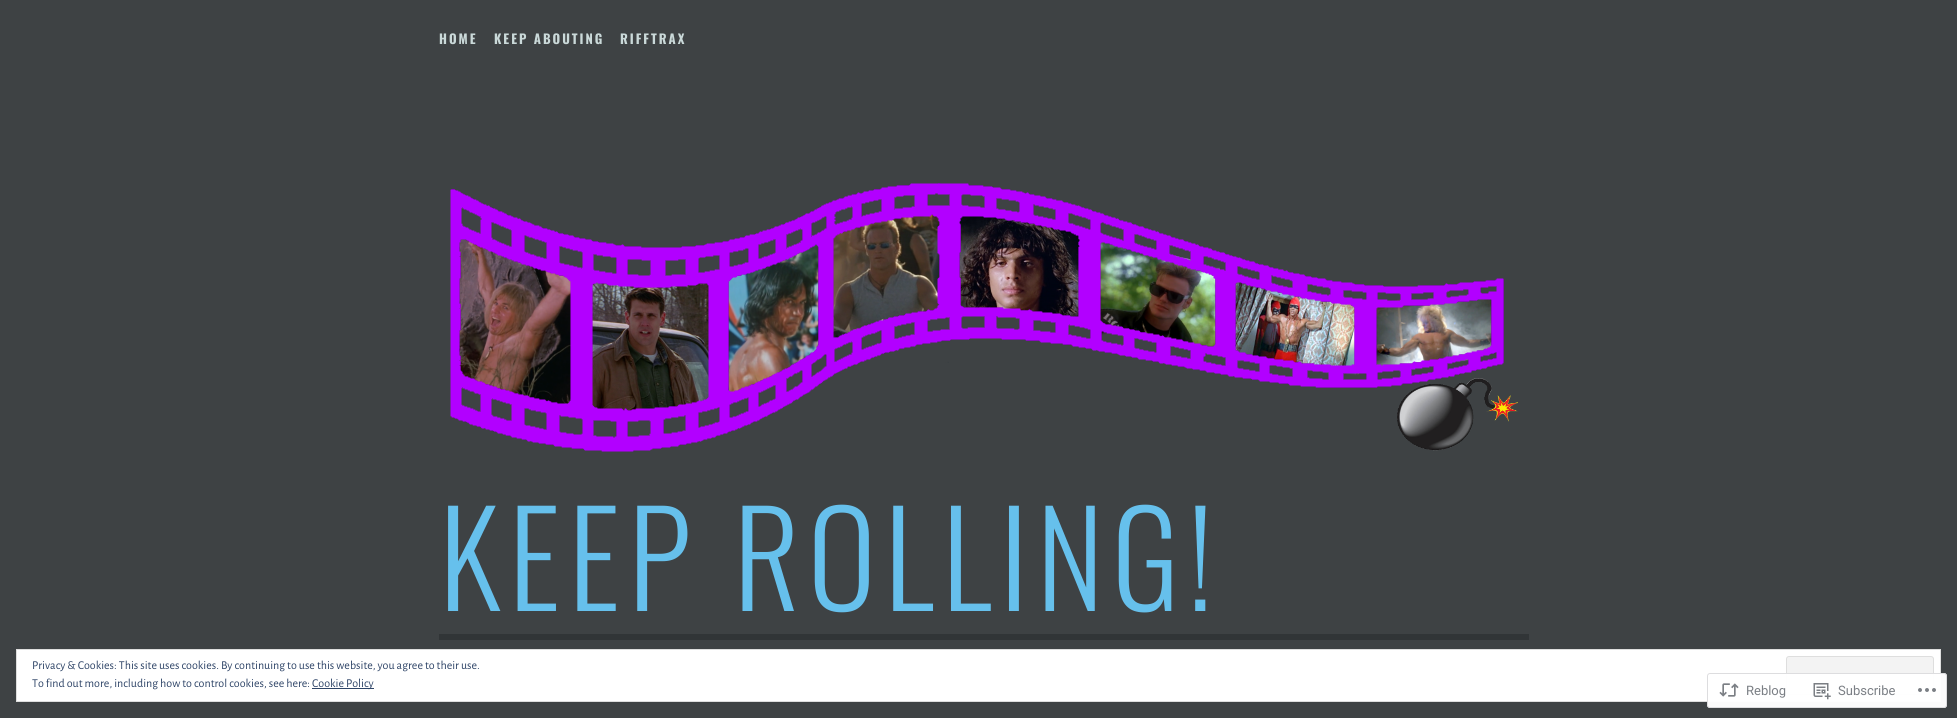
import math
import cairo


def write_spaced(ctx, x, y, s, letter, word):
	ctx.move_to(x, y)
	for ch in s:
		ctx.show_text(ch)
		ctx.rel_move_to(letter + word * (ch == ' '), 0)

def round_path(ctx, x, y, w, h, r):
	ctx.new_sub_path()
	for i, (u, v) in enumerate([(x + w - r, y + h - r), (x + r, y + h - r), (x + r, y + r), (x + w - r, y + r)]):
		ctx.arc(u, v, r, i * math.pi / 2, (i + 1) * math.pi / 2)
	ctx.close_path()

def paste(ctx, path, x, y, w, h):
	ctx.save()
	ctx.set_source_surface(cairo.ImageSurface.create_from_png(path), x, y)
	ctx.rectangle(x, y, w, h)
	ctx.fill()
	ctx.restore()

def draw(ctx):
	ctx.set_source_rgb(0.243, 0.259, 0.267)
	ctx.paint()
	ctx.select_font_face('Oswald', cairo.FONT_SLANT_NORMAL, cairo.FONT_WEIGHT_BOLD)
	ctx.set_font_size(13)
	ctx.set_source_rgb(0.792, 0.851, 0.851)
	for x, y, s in [
		(439, 44, 'HOME'),
		(494, 44, 'KEEP ABOUTING'),
		(620, 44, 'RIFFTRAX'),
	]:
		write_spaced(ctx, x, y, s, 2, 0)
	paste(ctx, 'media/1.png', 450, 183, 1068, 269)
	ctx.select_font_face('Oswald Light')
	ctx.set_font_size(130)
	ctx.set_source_rgb(0.4, 0.753, 0.925)
	write_spaced(ctx, 439, 611, 'KEEP ROLLING!', 8, 0)
	ctx.set_source_rgb(0.192, 0.208, 0.216)
	ctx.rectangle(439, 634, 1090, 6)
	ctx.fill()
	ctx.set_source_rgb(1, 1, 1)
	ctx.rectangle(16.5, 649.5, 1924, 52)
	ctx.fill_preserve()
	ctx.set_source_rgb(0.871, 0.871, 0.871)
	ctx.set_line_width(1)
	ctx.stroke()
	ctx.select_font_face('Alegreya Sans')
	ctx.set_font_size(12)
	ctx.set_source_rgb(0.18, 0.267, 0.404)
	ctx.move_to(32, 669)
	ctx.show_text('Privacy & Cookies: This site uses cookies. By continuing to use this website, you agree to their use.')
	ctx.set_source_rgb(0.953, 0.953, 0.953)
	round_path(ctx, 1786.5, 656.5, 147, 38, 2.5)
	ctx.fill_preserve()
	ctx.set_source_rgb(0.871, 0.871, 0.871)
	ctx.stroke()
	ctx.set_source_rgb(0.18, 0.267, 0.404)
	ctx.move_to(32, 687)
	ctx.show_text('To find out more, including how to control cookies, see here:')
	ctx.rectangle(312, 688, 62, 1)
	ctx.fill()
	ctx.move_to(312, 687)
	ctx.show_text('Cookie Policy')
	ctx.set_source_rgba(1, 1, 1, 0.98)
	round_path(ctx, 1707, 673, 240, 35, 3)
	ctx.fill()
	round_path(ctx, 1707.5, 673.5, 239, 34, 2.5)
	ctx.set_source_rgba(0.863, 0.863, 0.871, 0.98)
	ctx.stroke()
	paste(ctx, 'media/2.png', 1719, 683, 20, 14)
	ctx.select_font_face('Roboto')
	ctx.set_font_size(13)
	ctx.set_source_rgb(0.482, 0.498, 0.522)
	ctx.move_to(1746, 695)
	ctx.show_text('Reblog')
	paste(ctx, 'media/3.png', 1813, 683, 18, 17)
	ctx.move_to(1838, 695)
	ctx.show_text('Subscribe')
	paste(ctx, 'media/4.png', 1918, 688, 18, 4)


surface = cairo.ImageSurface(cairo.FORMAT_RGB24, 1957, 718)
ctx = cairo.Context(surface)
options = cairo.FontOptions()
options.set_hint_metrics(cairo.HINT_METRICS_OFF)
options.set_hint_style(cairo.HINT_STYLE_NONE)
ctx.set_font_options(options)
ctx.set_miter_limit(4)
draw(ctx)
surface.write_to_png('image.png')
